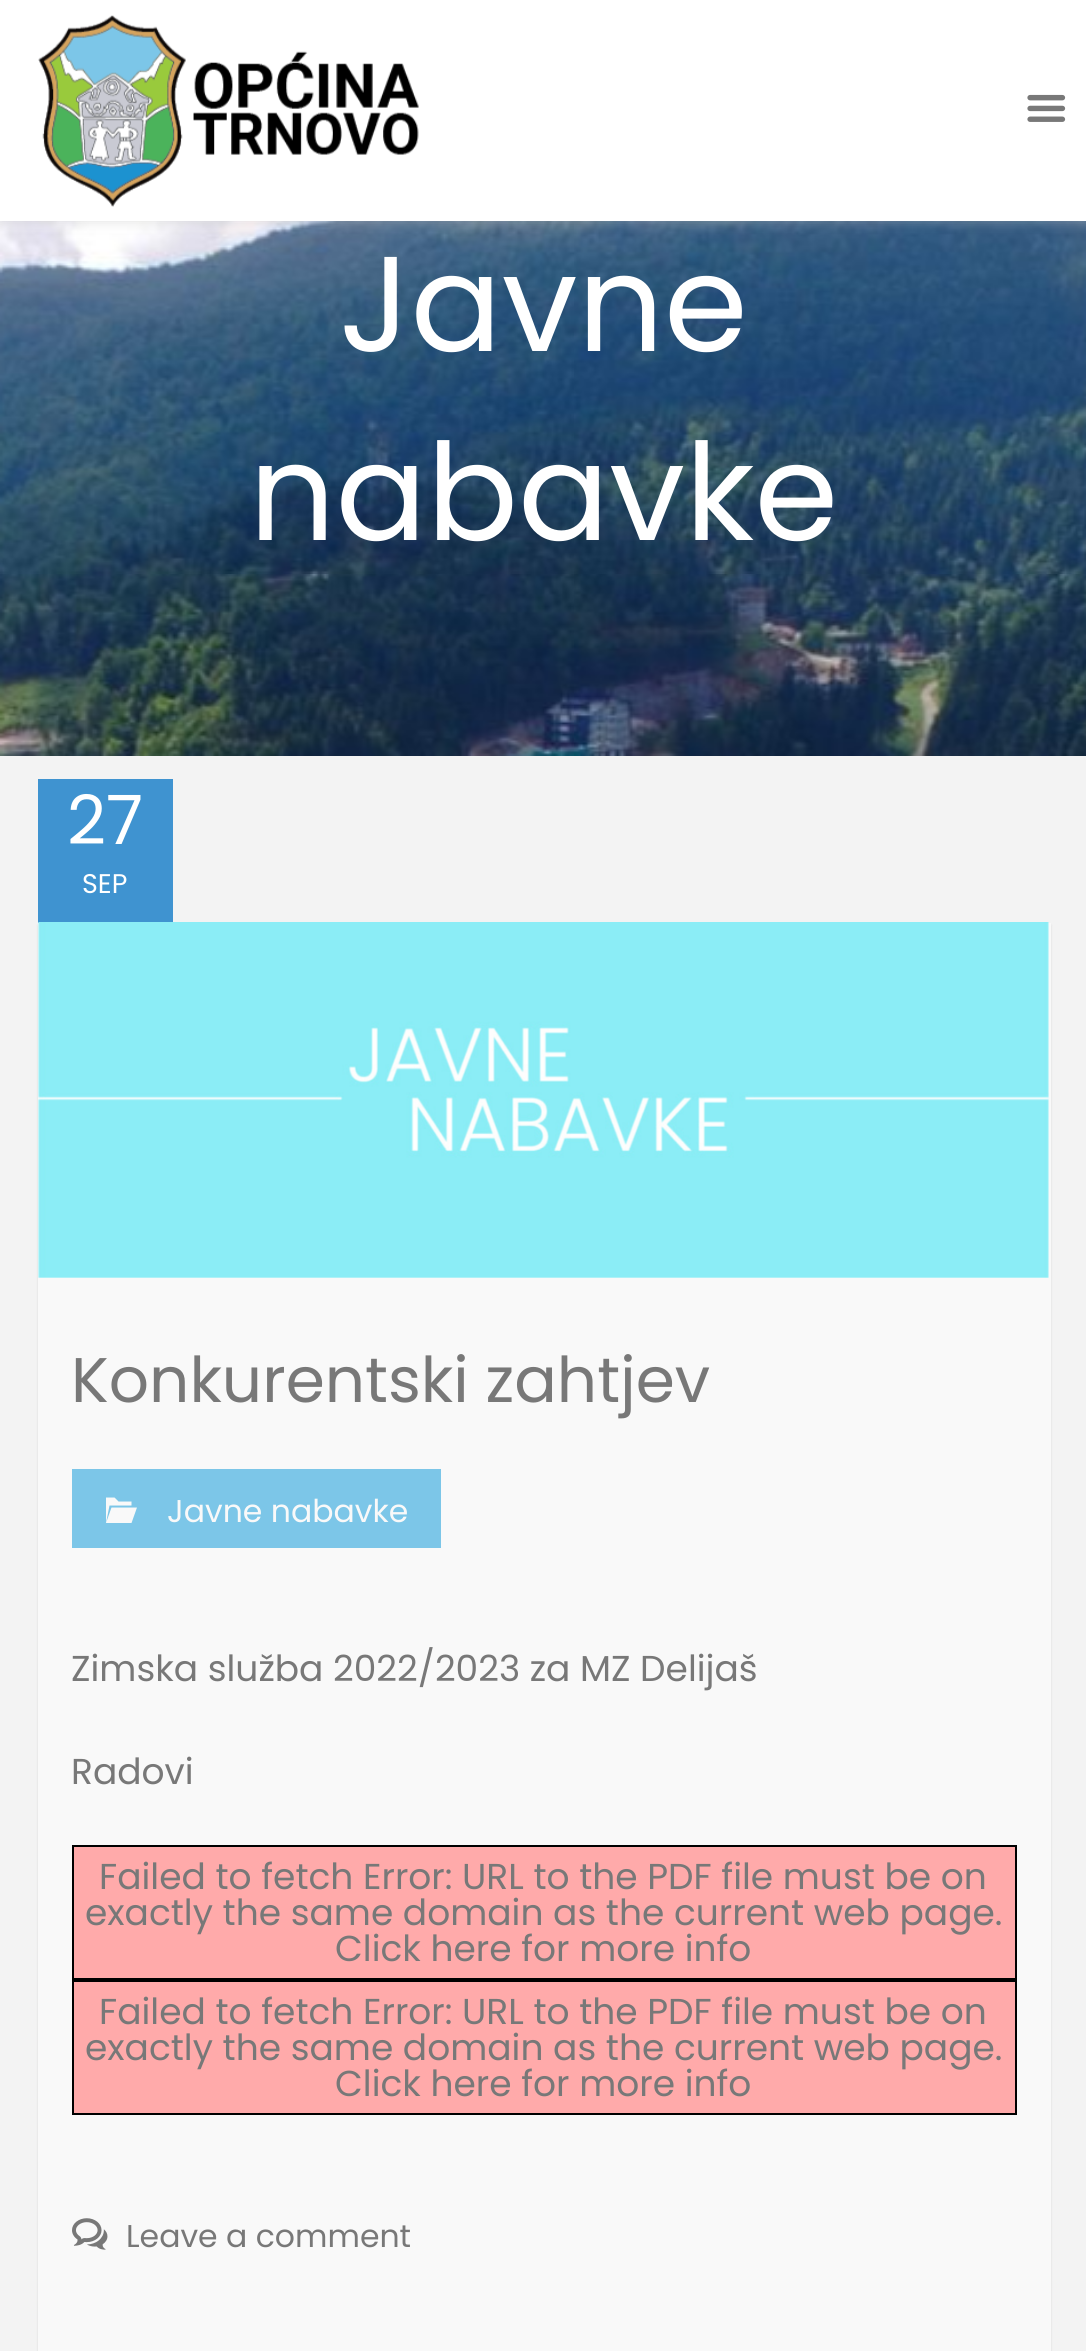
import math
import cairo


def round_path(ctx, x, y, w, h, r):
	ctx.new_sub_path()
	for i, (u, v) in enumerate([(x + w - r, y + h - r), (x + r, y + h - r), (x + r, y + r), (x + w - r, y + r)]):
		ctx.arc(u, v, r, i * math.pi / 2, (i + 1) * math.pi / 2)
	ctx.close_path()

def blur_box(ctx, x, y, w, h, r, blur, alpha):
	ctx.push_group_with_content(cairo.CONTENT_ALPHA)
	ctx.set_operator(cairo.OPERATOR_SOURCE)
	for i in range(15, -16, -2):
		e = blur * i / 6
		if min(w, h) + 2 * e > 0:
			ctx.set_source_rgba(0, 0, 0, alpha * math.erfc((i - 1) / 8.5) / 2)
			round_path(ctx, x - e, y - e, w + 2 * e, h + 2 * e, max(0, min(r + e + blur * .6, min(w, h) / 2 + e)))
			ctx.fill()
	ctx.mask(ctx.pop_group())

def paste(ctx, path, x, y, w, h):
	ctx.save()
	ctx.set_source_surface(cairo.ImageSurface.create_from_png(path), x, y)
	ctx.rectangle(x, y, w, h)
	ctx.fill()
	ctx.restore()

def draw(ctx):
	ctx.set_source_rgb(0.953, 0.953, 0.953)
	ctx.paint()
	paste(ctx, 'media/3.png', 0, 221, 1086, 535)
	ctx.set_source_rgb(0.745, 0.745, 0.745)
	blur_box(ctx, 0, 2, 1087, 221, 0, 5.5, 0.38)
	ctx.set_source_rgb(1, 1, 1)
	ctx.rectangle(0, 0, 1086, 221)
	ctx.fill()
	paste(ctx, 'media/1.png', 38, 15, 381, 192)
	paste(ctx, 'media/2.png', 1027, 94, 39, 28)
	ctx.select_font_face('Poppins')
	ctx.set_font_size(135)
	ctx.move_to(339, 351)
	ctx.show_text('Javne')
	ctx.move_to(249, 540)
	ctx.show_text('nabavke')
	ctx.set_source_rgb(0, 0, 0)
	blur_box(ctx, 38, 925, 1013, 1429, 0, 1, 0.1)
	ctx.set_source_rgb(0.247, 0.576, 0.816)
	ctx.rectangle(38, 779, 135, 144)
	ctx.fill()
	ctx.set_font_size(68)
	ctx.set_source_rgb(1, 1, 1)
	ctx.move_to(67, 844)
	ctx.show_text('27')
	ctx.set_font_size(27)
	ctx.move_to(82, 893)
	ctx.show_text('SEP')
	ctx.set_source_rgb(0.976, 0.976, 0.976)
	ctx.rectangle(38, 923, 1013, 1428)
	ctx.fill()
	paste(ctx, 'media/4.png', 38, 922, 1011, 356)
	ctx.set_font_size(63)
	ctx.set_source_rgb(0.471, 0.471, 0.471)
	ctx.move_to(71, 1402)
	ctx.show_text('Konkurentski zahtjev')
	ctx.set_source_rgb(0.486, 0.776, 0.91)
	ctx.rectangle(72, 1469, 369, 79)
	ctx.fill()
	ctx.set_source_rgb(0.976, 0.976, 0.976)
	ctx.new_path()
	ctx.move_to(131.5, 1523)
	ctx.line_to(137, 1507.5)
	ctx.line_to(111.5, 1507.5)
	ctx.line_to(106, 1523)
	ctx.close_path()
	ctx.move_to(109.5, 1505.5)
	ctx.line_to(106, 1523)
	ctx.line_to(106, 1497.5)
	ctx.line_to(114.5, 1497.5)
	ctx.line_to(118.5, 1501.5)
	ctx.line_to(131.5, 1501.5)
	ctx.line_to(131.5, 1505.5)
	ctx.close_path()
	ctx.fill()
	ctx.set_font_size(31.5)
	ctx.move_to(167, 1522)
	ctx.show_text('Javne nabavke')
	ctx.set_font_size(36)
	ctx.set_source_rgb(0.471, 0.471, 0.471)
	ctx.move_to(71, 1681)
	ctx.show_text('Zimska služba 2022/2023 za MZ Delijaš')
	ctx.move_to(71, 1784)
	ctx.show_text('Radovi')
	ctx.rectangle(73, 1846, 943, 133)
	ctx.set_source_rgb(0, 0, 0)
	ctx.stroke()
	ctx.set_source_rgb(1, 0.667, 0.667)
	ctx.rectangle(74, 1847, 941, 131)
	ctx.fill()
	ctx.set_source_rgb(0.471, 0.471, 0.471)
	for x, y, s in [
		(99, 1889, 'Failed to fetch Error: URL to the PDF file must be on'),
		(85, 1925, 'exactly the same domain as the current web page.'),
		(335, 1961, 'Click here for more info'),
	]:
		ctx.move_to(x, y)
		ctx.show_text(s)
	ctx.rectangle(73, 1981, 943, 133)
	ctx.set_source_rgb(0, 0, 0)
	ctx.stroke()
	ctx.set_source_rgb(1, 0.667, 0.667)
	ctx.rectangle(74, 1982, 941, 131)
	ctx.fill()
	ctx.set_source_rgb(0.471, 0.471, 0.471)
	for x, y, s in [
		(99, 2024, 'Failed to fetch Error: URL to the PDF file must be on'),
		(85, 2060, 'exactly the same domain as the current web page.'),
		(335, 2096, 'Click here for more info'),
	]:
		ctx.move_to(x, y)
		ctx.show_text(s)
	paste(ctx, 'media/5.png', 72, 2218, 36, 32)
	ctx.set_font_size(31.5)
	ctx.move_to(126, 2247)
	ctx.show_text('Leave a comment')


surface = cairo.ImageSurface(cairo.FORMAT_RGB24, 1086, 2351)
ctx = cairo.Context(surface)
options = cairo.FontOptions()
options.set_hint_metrics(cairo.HINT_METRICS_OFF)
options.set_hint_style(cairo.HINT_STYLE_NONE)
ctx.set_font_options(options)
ctx.set_miter_limit(4)
draw(ctx)
surface.write_to_png('image.png')
